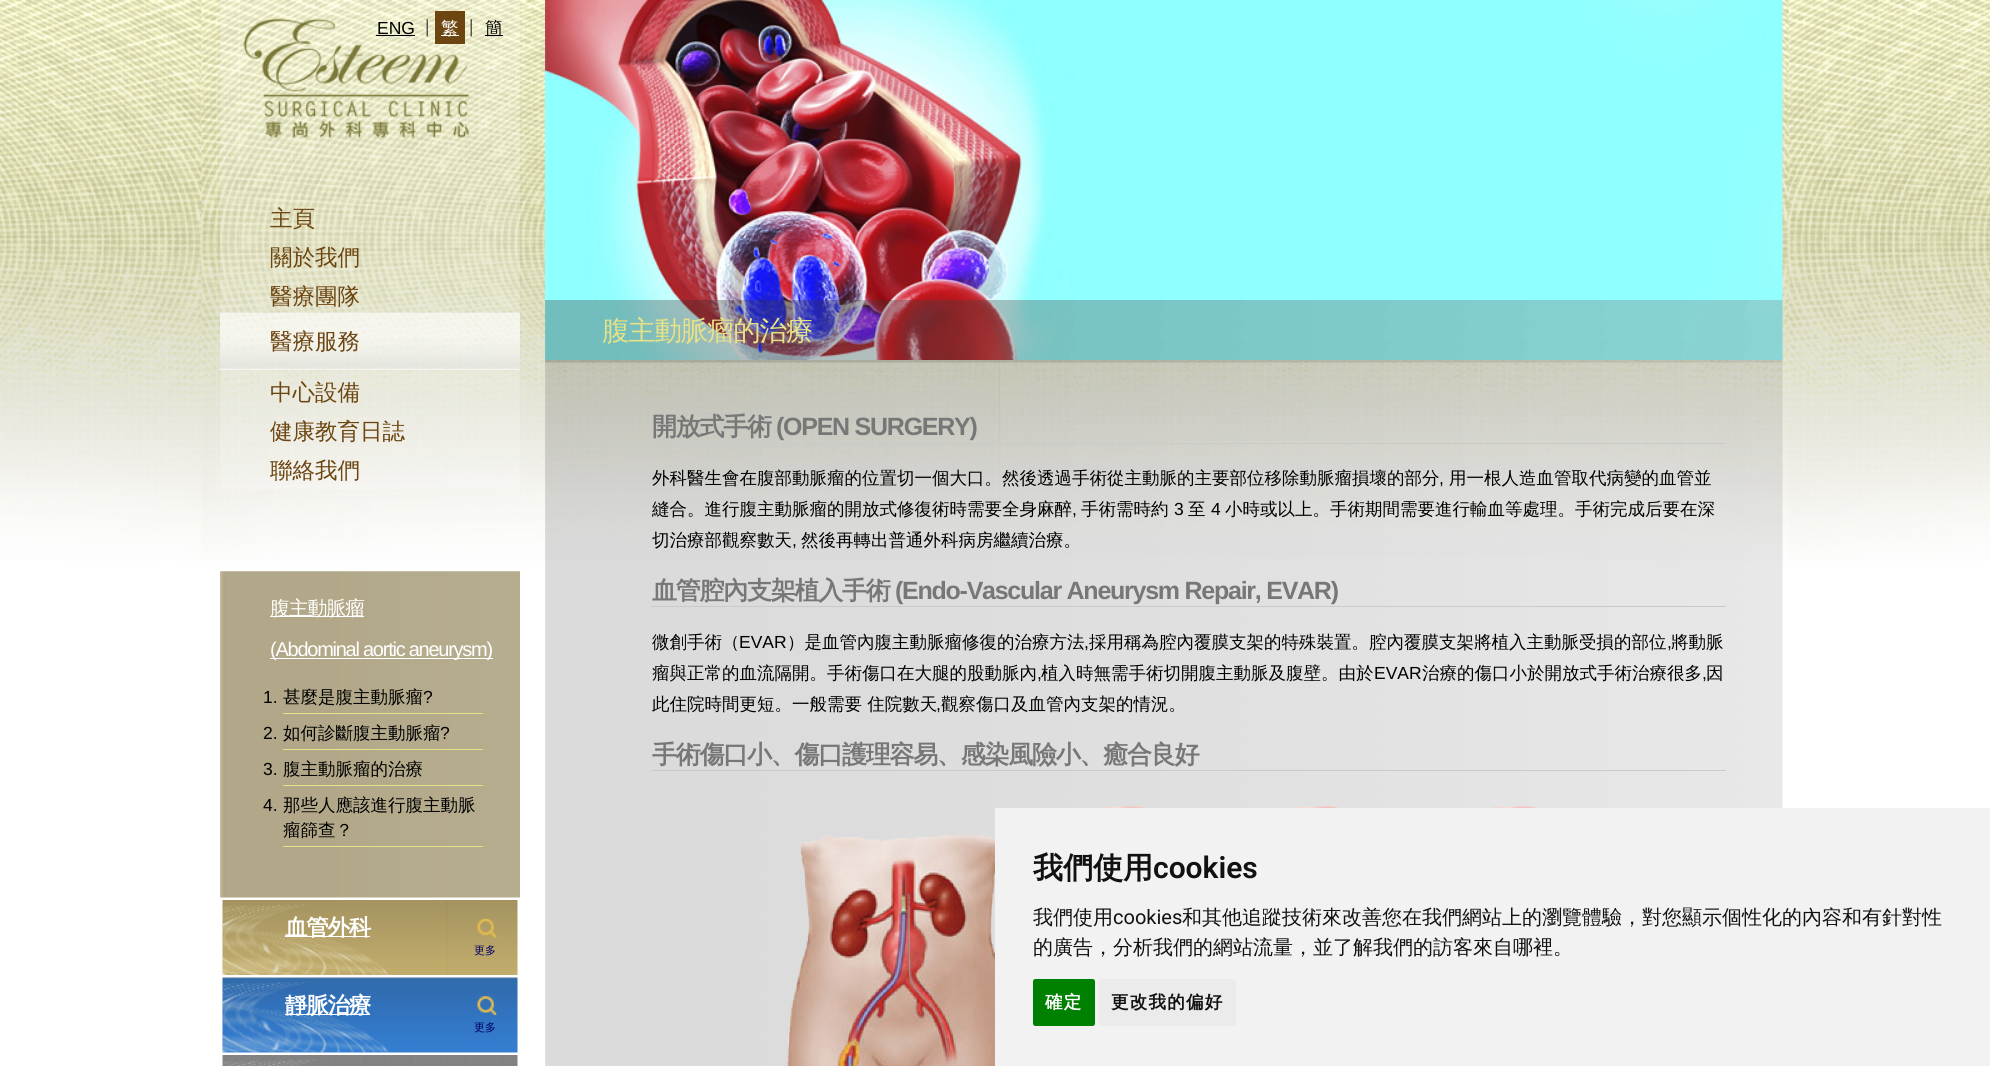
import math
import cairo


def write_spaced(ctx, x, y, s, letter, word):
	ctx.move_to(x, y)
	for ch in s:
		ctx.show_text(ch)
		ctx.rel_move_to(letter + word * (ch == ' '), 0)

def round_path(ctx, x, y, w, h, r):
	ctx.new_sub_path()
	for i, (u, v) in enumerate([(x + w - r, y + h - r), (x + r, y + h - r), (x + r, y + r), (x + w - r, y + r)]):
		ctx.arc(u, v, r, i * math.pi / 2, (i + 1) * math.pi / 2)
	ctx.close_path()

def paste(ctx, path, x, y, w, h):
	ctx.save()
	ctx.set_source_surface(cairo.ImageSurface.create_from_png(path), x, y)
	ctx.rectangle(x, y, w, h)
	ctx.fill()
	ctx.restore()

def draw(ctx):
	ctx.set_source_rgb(1, 1, 1)
	ctx.paint()
	paste(ctx, 'media/1.png', 0, 0, 1990, 561)
	ctx.set_source_rgba(1, 1, 1, 0.2)
	ctx.rectangle(220, 0, 300, 490)
	ctx.fill()
	paste(ctx, 'media/2.png', 243, 18, 227, 120)
	ctx.select_font_face('Liberation Sans')
	ctx.set_font_size(17.5)
	ctx.set_source_rgb(0, 0, 0)
	ctx.move_to(377, 34)
	ctx.show_text('ENG')
	ctx.rectangle(376, 35, 39, 1)
	ctx.fill()
	ctx.select_font_face('Raleway')
	ctx.set_font_size(19)
	ctx.set_source_rgb(0.133, 0.133, 0.133)
	ctx.move_to(425, 34)
	ctx.show_text('|')
	ctx.set_source_rgb(0.427, 0.271, 0.067)
	ctx.rectangle(435, 11, 30, 33)
	ctx.fill()
	ctx.set_source_rgb(1, 1, 1)
	ctx.rectangle(441, 35, 18, 1)
	ctx.fill()
	ctx.select_font_face('WenQuanYi Zen Hei Medium')
	ctx.set_font_size(17.5)
	ctx.move_to(441, 34)
	ctx.show_text('繁')
	ctx.select_font_face('Raleway')
	ctx.set_font_size(19)
	ctx.set_source_rgb(0.133, 0.133, 0.133)
	ctx.move_to(469, 34)
	ctx.show_text('|')
	ctx.set_source_rgb(0, 0, 0)
	ctx.rectangle(485, 35, 18, 1)
	ctx.fill()
	ctx.select_font_face('WenQuanYi Zen Hei Medium')
	ctx.set_font_size(17.5)
	ctx.move_to(485, 34)
	ctx.show_text('簡')
	ctx.set_font_size(22.5)
	ctx.set_source_rgb(0.427, 0.271, 0.067)
	for x, y, s in [
		(270, 226, '主頁'),
		(270, 265, '關於我們'),
		(270, 304, '醫療團隊'),
	]:
		ctx.move_to(x, y)
		ctx.show_text(s)
	paste(ctx, 'media/3.png', 220, 312, 300, 58)
	for x, y, s in [
		(270, 349, '醫療服務'),
		(270, 400, '中心設備'),
		(270, 439, '健康教育日誌'),
		(270, 478, '聯絡我們'),
	]:
		ctx.move_to(x, y)
		ctx.show_text(s)
	paste(ctx, 'media/4.png', 220, 571, 300, 327)
	ctx.set_source_rgb(1, 1, 1)
	ctx.rectangle(270, 616, 94, 1)
	ctx.fill()
	ctx.set_font_size(20)
	write_spaced(ctx, 270, 615, '腹主動脈瘤', -1.25, 0)
	ctx.rectangle(270, 658, 223, 1)
	ctx.fill()
	ctx.select_font_face('Liberation Sans')
	write_spaced(ctx, 270, 656, '(Abdominal aortic aneurysm)', -1.25, 0)
	ctx.set_font_size(17.5)
	ctx.set_source_rgb(0, 0, 0)
	ctx.move_to(263, 703)
	ctx.show_text('1.')
	ctx.set_source_rgb(0.902, 0.886, 0.522)
	ctx.rectangle(283, 713, 200, 1)
	ctx.fill()
	ctx.select_font_face('WenQuanYi Zen Hei Medium')
	ctx.set_source_rgb(0, 0, 0)
	ctx.move_to(283, 703)
	ctx.show_text('甚麼是腹主動脈瘤')
	ctx.select_font_face('Liberation Sans')
	ctx.move_to(423, 703)
	ctx.show_text('?')
	ctx.move_to(263, 739)
	ctx.show_text('2.')
	ctx.set_source_rgb(0.902, 0.886, 0.522)
	ctx.rectangle(283, 749, 200, 1)
	ctx.fill()
	ctx.select_font_face('WenQuanYi Zen Hei Medium')
	ctx.set_source_rgb(0, 0, 0)
	ctx.move_to(283, 739)
	ctx.show_text('如何診斷腹主動脈瘤')
	ctx.select_font_face('Liberation Sans')
	ctx.move_to(440, 739)
	ctx.show_text('?')
	ctx.move_to(263, 775)
	ctx.show_text('3.')
	ctx.set_source_rgb(0.902, 0.886, 0.522)
	ctx.rectangle(283, 785, 200, 1)
	ctx.fill()
	ctx.select_font_face('WenQuanYi Zen Hei Medium')
	ctx.set_source_rgb(0, 0, 0)
	ctx.move_to(283, 775)
	ctx.show_text('腹主動脈瘤的治療')
	ctx.select_font_face('Liberation Sans')
	ctx.move_to(263, 811)
	ctx.show_text('4.')
	ctx.set_source_rgb(0.902, 0.886, 0.522)
	ctx.rectangle(283, 846, 200, 1)
	ctx.fill()
	ctx.select_font_face('WenQuanYi Zen Hei Medium')
	ctx.set_source_rgb(0, 0, 0)
	ctx.move_to(283, 811)
	ctx.show_text('那些人應該進行腹主動脈')
	ctx.move_to(283, 836)
	ctx.show_text('瘤篩查？')
	paste(ctx, 'media/5.png', 222, 900, 296, 75)
	paste(ctx, 'media/6.png', 222, 904, 168, 71)
	ctx.set_source_rgb(1, 1, 1)
	ctx.rectangle(285, 936, 85, 1)
	ctx.fill()
	ctx.select_font_face('WenQuanYi Zen Hei', cairo.FONT_SLANT_NORMAL, cairo.FONT_WEIGHT_BOLD)
	ctx.set_font_size(22.5)
	write_spaced(ctx, 285, 935, '血管外科', -1.25, 0)
	paste(ctx, 'media/7.png', 477, 918, 20, 20)
	ctx.select_font_face('WenQuanYi Zen Hei Medium')
	ctx.set_font_size(11)
	ctx.set_source_rgb(0, 0, 0.4)
	ctx.move_to(474, 954)
	ctx.show_text('更多')
	paste(ctx, 'media/8.png', 222, 977, 296, 76)
	paste(ctx, 'media/9.png', 222, 981, 168, 72)
	ctx.set_source_rgb(1, 1, 1)
	ctx.rectangle(285, 1014, 85, 1)
	ctx.fill()
	ctx.select_font_face('WenQuanYi Zen Hei', cairo.FONT_SLANT_NORMAL, cairo.FONT_WEIGHT_BOLD)
	ctx.set_font_size(22.5)
	write_spaced(ctx, 285, 1013, '靜脈治療', -1.25, 0)
	paste(ctx, 'media/10.png', 477, 996, 20, 19)
	ctx.select_font_face('WenQuanYi Zen Hei Medium')
	ctx.set_font_size(11)
	ctx.set_source_rgb(0, 0, 0.4)
	ctx.move_to(474, 1031)
	ctx.show_text('更多')
	paste(ctx, 'media/11.png', 222, 1055, 296, 11)
	paste(ctx, 'media/12.png', 223, 1059, 99, 7)
	paste(ctx, 'media/13.png', 545, 0, 1238, 360)
	paste(ctx, 'media/14.png', 545, 300, 1238, 766)
	paste(ctx, 'media/15.png', 545, 300, 1238, 63)
	ctx.set_font_size(27.5)
	ctx.set_source_rgb(0.902, 0.886, 0.522)
	write_spaced(ctx, 602, 340, '腹主動脈瘤的治療', -1.25, 0)
	ctx.set_source_rgb(0.804, 0.792, 0.776)
	ctx.rectangle(651, 443, 1075, 1)
	ctx.fill()
	ctx.select_font_face('WenQuanYi Zen Hei', cairo.FONT_SLANT_NORMAL, cairo.FONT_WEIGHT_BOLD)
	ctx.set_font_size(25)
	ctx.set_source_rgb(0.467, 0.467, 0.467)
	write_spaced(ctx, 652, 435, '開放式手術', -1.25, 0)
	ctx.select_font_face('Liberation Sans', cairo.FONT_SLANT_NORMAL, cairo.FONT_WEIGHT_BOLD)
	write_spaced(ctx, 776, 435, '(OPEN SURGERY)', -1.25, 0)
	ctx.select_font_face('WenQuanYi Zen Hei Medium')
	ctx.set_font_size(17.5)
	ctx.set_source_rgb(0, 0, 0)
	ctx.move_to(652, 484)
	ctx.show_text('外科醫生會在腹部動脈瘤的位置切一個大口。然後透過手術從主動脈的主要部位移除動脈瘤損壞的部分')
	ctx.select_font_face('Liberation Sans')
	ctx.move_to(1439, 484)
	ctx.show_text(',')
	ctx.select_font_face('WenQuanYi Zen Hei Medium')
	for x, y, s in [
		(1449, 484, '用一根人造血管取代病變的血管並'),
		(652, 515, '縫合。進行腹主動脈瘤的開放式修復術時需要全身麻醉'),
		(1081, 515, '手術需時約'),
	]:
		ctx.move_to(x, y)
		ctx.show_text(s)
	ctx.select_font_face('Liberation Sans')
	ctx.move_to(1174, 515)
	ctx.show_text('3')
	ctx.select_font_face('WenQuanYi Zen Hei Medium')
	ctx.move_to(1188, 515)
	ctx.show_text('至')
	ctx.select_font_face('Liberation Sans')
	ctx.move_to(1211, 515)
	ctx.show_text('4')
	ctx.select_font_face('WenQuanYi Zen Hei Medium')
	ctx.move_to(1225, 515)
	ctx.show_text('小時或以上。手術期間需要進行輸血等處理。手術完成后要在深')
	ctx.select_font_face('Liberation Sans')
	ctx.move_to(1072, 515)
	ctx.show_text(',')
	ctx.select_font_face('WenQuanYi Zen Hei Medium')
	ctx.move_to(652, 546)
	ctx.show_text('切治療部觀察數天')
	ctx.select_font_face('Liberation Sans')
	ctx.move_to(792, 546)
	ctx.show_text(',')
	ctx.select_font_face('WenQuanYi Zen Hei Medium')
	ctx.move_to(801, 546)
	ctx.show_text('然後再轉出普通外科病房繼續治療。')
	ctx.set_source_rgb(0.804, 0.792, 0.776)
	ctx.rectangle(651, 606, 1075, 1)
	ctx.fill()
	ctx.select_font_face('WenQuanYi Zen Hei', cairo.FONT_SLANT_NORMAL, cairo.FONT_WEIGHT_BOLD)
	ctx.set_font_size(25)
	ctx.set_source_rgb(0.467, 0.467, 0.467)
	write_spaced(ctx, 652, 599, '血管腔內支架植入手術', -1.25, 0)
	ctx.select_font_face('Liberation Sans', cairo.FONT_SLANT_NORMAL, cairo.FONT_WEIGHT_BOLD)
	write_spaced(ctx, 895, 599, '(Endo-Vascular Aneurysm Repair, EVAR)', -1.25, 0)
	ctx.select_font_face('WenQuanYi Zen Hei Medium')
	ctx.set_font_size(17.5)
	ctx.set_source_rgb(0, 0, 0)
	ctx.move_to(652, 648)
	ctx.show_text('微創手術（')
	ctx.select_font_face('Liberation Sans')
	ctx.move_to(739, 648)
	ctx.show_text('EVAR')
	ctx.select_font_face('WenQuanYi Zen Hei Medium')
	for x, y, s in [
		(787, 648, '）是血管內腹主動脈瘤修復的治療方法'),
		(1089, 648, '採用稱為腔內覆膜支架的特殊裝置。腔內覆膜支架將植入主動脈受損的部位'),
		(1671, 648, '將動脈'),
	]:
		ctx.move_to(x, y)
		ctx.show_text(s)
	ctx.select_font_face('Liberation Sans')
	ctx.move_to(1084, 648)
	ctx.show_text(',')
	ctx.move_to(1667, 648)
	ctx.show_text(',')
	ctx.select_font_face('WenQuanYi Zen Hei Medium')
	ctx.move_to(652, 679)
	ctx.show_text('瘤與正常的血流隔開。手術傷口在大腿的股動脈內')
	ctx.move_to(1041, 679)
	ctx.show_text('植入時無需手術切開腹主動脈及腹壁。由於')
	ctx.select_font_face('Liberation Sans')
	ctx.move_to(1374, 679)
	ctx.show_text('EVAR')
	ctx.select_font_face('WenQuanYi Zen Hei Medium')
	ctx.move_to(1422, 679)
	ctx.show_text('治療的傷口小於開放式手術治療很多')
	ctx.move_to(1706, 679)
	ctx.show_text('因')
	ctx.select_font_face('Liberation Sans')
	ctx.move_to(1037, 679)
	ctx.show_text(',')
	ctx.move_to(1702, 679)
	ctx.show_text(',')
	ctx.select_font_face('WenQuanYi Zen Hei Medium')
	ctx.move_to(652, 710)
	ctx.show_text('此住院時間更短。一般需要 住院數天')
	ctx.select_font_face('Liberation Sans')
	ctx.move_to(936, 710)
	ctx.show_text(',')
	ctx.select_font_face('WenQuanYi Zen Hei Medium')
	ctx.move_to(941, 710)
	ctx.show_text('觀察傷口及血管內支架的情況。')
	ctx.set_source_rgb(0.804, 0.792, 0.776)
	ctx.rectangle(651, 770, 1075, 1)
	ctx.fill()
	ctx.select_font_face('WenQuanYi Zen Hei', cairo.FONT_SLANT_NORMAL, cairo.FONT_WEIGHT_BOLD)
	ctx.set_font_size(25)
	ctx.set_source_rgb(0.467, 0.467, 0.467)
	write_spaced(ctx, 652, 763, '手術傷口小、傷口護理容易、感染風險小、癒合良好', -1.25, 0)
	paste(ctx, 'media/16.png', 787, 806, 749, 260)
	ctx.set_source_rgb(0.949, 0.949, 0.949)
	ctx.rectangle(995, 808, 995, 258)
	ctx.fill()
	ctx.set_font_size(30)
	ctx.set_source_rgb(0.067, 0.067, 0.067)
	ctx.move_to(1033, 878)
	ctx.show_text('我們使用')
	ctx.select_font_face('Roboto SemiBold')
	ctx.move_to(1153, 878)
	ctx.show_text('cookies')
	ctx.select_font_face('WenQuanYi Zen Hei Medium')
	ctx.set_font_size(20)
	ctx.move_to(1033, 924)
	ctx.show_text('我們使用')
	ctx.select_font_face('Roboto')
	ctx.move_to(1113, 924)
	ctx.show_text('cookies')
	ctx.select_font_face('WenQuanYi Zen Hei Medium')
	ctx.move_to(1182, 924)
	ctx.show_text('和其他追蹤技術來改善您在我們網站上的瀏覽體驗，對您顯示個性化的內容和有針對性')
	ctx.move_to(1033, 954)
	ctx.show_text('的廣告，分析我們的網站流量，並了解我們的訪客來自哪裡。')
	ctx.set_source_rgb(0, 0.502, 0)
	round_path(ctx, 1033, 979, 62, 47, 2.5)
	ctx.fill()
	ctx.select_font_face('WenQuanYi Zen Hei', cairo.FONT_SLANT_NORMAL, cairo.FONT_WEIGHT_BOLD)
	ctx.set_font_size(17.5)
	ctx.set_source_rgb(1, 1, 1)
	write_spaced(ctx, 1045, 1008, '確定', 1.25, 0)
	ctx.set_source_rgb(0.918, 0.918, 0.918)
	round_path(ctx, 1099, 979, 137, 47, 2.5)
	ctx.fill()
	ctx.set_source_rgb(0.067, 0.067, 0.067)
	write_spaced(ctx, 1111, 1008, '更改我的偏好', 1.25, 0)


surface = cairo.ImageSurface(cairo.FORMAT_RGB24, 1990, 1066)
ctx = cairo.Context(surface)
options = cairo.FontOptions()
options.set_hint_metrics(cairo.HINT_METRICS_OFF)
options.set_hint_style(cairo.HINT_STYLE_NONE)
ctx.set_font_options(options)
ctx.set_miter_limit(4)
draw(ctx)
surface.write_to_png('image.png')
